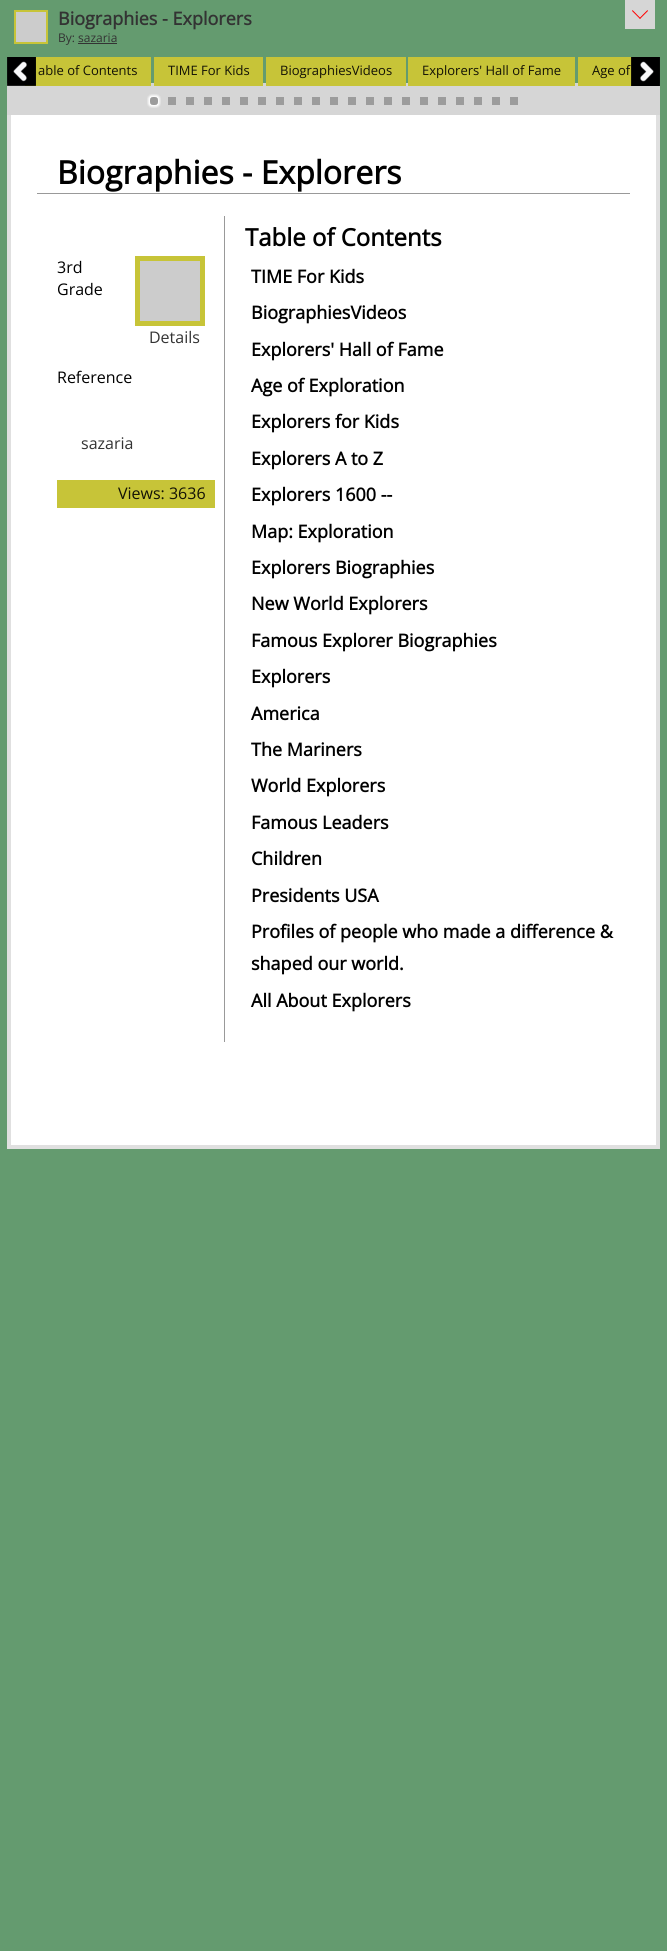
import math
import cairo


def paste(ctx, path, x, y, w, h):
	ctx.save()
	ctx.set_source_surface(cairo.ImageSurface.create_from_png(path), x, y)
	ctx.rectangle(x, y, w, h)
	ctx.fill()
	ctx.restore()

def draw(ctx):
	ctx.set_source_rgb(0.392, 0.608, 0.435)
	ctx.paint()
	ctx.set_source_rgb(0.78, 0.769, 0.22)
	ctx.rectangle(14, 10, 34, 34)
	ctx.fill()
	ctx.set_source_rgb(0.8, 0.8, 0.8)
	ctx.rectangle(16, 12, 30, 30)
	ctx.fill()
	ctx.select_font_face('Open Sans', cairo.FONT_SLANT_NORMAL, cairo.FONT_WEIGHT_BOLD)
	ctx.set_font_size(18)
	ctx.set_source_rgb(0.2, 0.2, 0.2)
	ctx.move_to(58, 25)
	ctx.show_text('Biographies - Explorers')
	ctx.select_font_face('Open Sans')
	ctx.set_font_size(12)
	ctx.move_to(58, 42)
	ctx.show_text('By: sazaria')
	ctx.rectangle(78, 43, 39, 1)
	ctx.fill()
	ctx.set_source_rgb(0.839, 0.839, 0.839)
	ctx.rectangle(7, 83, 653, 32)
	ctx.fill()
	ctx.set_source_rgb(0.78, 0.769, 0.22)
	ctx.rectangle(25, 57, 126, 29)
	ctx.fill()
	paste(ctx, 'media/1.png', 7, 57, 29, 29)
	ctx.set_font_size(13)
	ctx.set_source_rgb(0.078, 0.071, 0.02)
	ctx.move_to(38, 75)
	ctx.show_text('able of Contents')
	ctx.set_source_rgb(0.78, 0.769, 0.22)
	ctx.rectangle(154, 57, 109, 29)
	ctx.fill()
	ctx.set_source_rgb(0.078, 0.071, 0.02)
	ctx.move_to(168, 75)
	ctx.show_text('TIME For Kids')
	ctx.set_source_rgb(0.78, 0.769, 0.22)
	ctx.rectangle(266, 57, 140, 29)
	ctx.fill()
	ctx.set_source_rgb(0.078, 0.071, 0.02)
	ctx.move_to(280, 75)
	ctx.show_text('BiographiesVideos')
	ctx.set_source_rgb(0.78, 0.769, 0.22)
	ctx.rectangle(408, 57, 167, 29)
	ctx.fill()
	ctx.set_source_rgb(0.078, 0.071, 0.02)
	ctx.move_to(422, 75)
	ctx.show_text('Explorers\' Hall of Fame')
	ctx.set_source_rgb(0.78, 0.769, 0.22)
	ctx.rectangle(578, 57, 54, 29)
	ctx.fill()
	ctx.set_source_rgb(0.078, 0.071, 0.02)
	ctx.move_to(592, 75)
	ctx.show_text('Age of')
	paste(ctx, 'media/2.png', 631, 57, 29, 29)
	paste(ctx, 'media/3.png', 147, 94, 14, 14)
	ctx.set_source_rgb(0.612, 0.612, 0.612)
	ctx.rectangle(168, 97, 8, 8)
	ctx.rectangle(186, 97, 8, 8)
	ctx.rectangle(204, 97, 8, 8)
	ctx.rectangle(222, 97, 8, 8)
	ctx.rectangle(240, 97, 8, 8)
	ctx.rectangle(258, 97, 8, 8)
	ctx.rectangle(276, 97, 8, 8)
	ctx.rectangle(294, 97, 8, 8)
	ctx.rectangle(312, 97, 8, 8)
	ctx.rectangle(330, 97, 8, 8)
	ctx.rectangle(348, 97, 8, 8)
	ctx.rectangle(366, 97, 8, 8)
	ctx.rectangle(384, 97, 8, 8)
	ctx.rectangle(402, 97, 8, 8)
	ctx.rectangle(420, 97, 8, 8)
	ctx.rectangle(438, 97, 8, 8)
	ctx.rectangle(456, 97, 8, 8)
	ctx.rectangle(474, 97, 8, 8)
	ctx.rectangle(492, 97, 8, 8)
	ctx.rectangle(510, 97, 8, 8)
	ctx.fill()
	ctx.set_source_rgb(1, 1, 1)
	ctx.rectangle(11, 115, 645, 1030)
	ctx.fill()
	ctx.set_source_rgb(0.878, 0.878, 0.878)
	ctx.rectangle(656, 115, 4, 1034)
	ctx.rectangle(7, 1145, 653, 4)
	ctx.rectangle(7, 115, 4, 1034)
	ctx.fill()
	ctx.set_source_rgb(0.6, 0.6, 0.6)
	ctx.rectangle(37, 193, 593, 1)
	ctx.fill()
	ctx.select_font_face('Open Sans', cairo.FONT_SLANT_NORMAL, cairo.FONT_WEIGHT_BOLD)
	ctx.set_font_size(32)
	ctx.set_source_rgb(0, 0, 0)
	ctx.move_to(57, 184)
	ctx.show_text('Biographies - Explorers')
	ctx.set_source_rgb(0.6, 0.6, 0.6)
	ctx.rectangle(224, 216, 1, 826)
	ctx.fill()
	ctx.set_font_size(24)
	ctx.set_source_rgb(0, 0, 0)
	ctx.move_to(245, 246)
	ctx.show_text('Table of Contents')
	ctx.select_font_face('Open Sans')
	ctx.set_font_size(16)
	ctx.move_to(57, 273)
	ctx.show_text('3rd')
	ctx.move_to(57, 295)
	ctx.show_text('Grade')
	ctx.set_source_rgb(0.78, 0.769, 0.22)
	ctx.rectangle(135, 256, 70, 70)
	ctx.fill()
	ctx.set_source_rgb(0.8, 0.8, 0.8)
	ctx.rectangle(140, 261, 60, 60)
	ctx.fill()
	ctx.set_source_rgb(0.2, 0.2, 0.2)
	ctx.move_to(149, 343)
	ctx.show_text('Details')
	ctx.set_source_rgb(0, 0, 0)
	ctx.move_to(57, 383)
	ctx.show_text('Reference')
	ctx.set_source_rgb(0.2, 0.2, 0.2)
	ctx.move_to(81, 449)
	ctx.show_text('sazaria')
	ctx.set_source_rgb(0.78, 0.769, 0.22)
	ctx.rectangle(57, 480, 158, 28)
	ctx.fill()
	ctx.set_source_rgb(0.078, 0.071, 0.02)
	ctx.move_to(118, 499)
	ctx.show_text('Views: 3636')
	ctx.select_font_face('Open Sans', cairo.FONT_SLANT_NORMAL, cairo.FONT_WEIGHT_BOLD)
	ctx.set_font_size(18)
	ctx.set_source_rgb(0, 0, 0)
	for x, y, s in [
		(251, 283, 'TIME For Kids'),
		(251, 319, 'BiographiesVideos'),
		(251, 356, 'Explorers\' Hall of Fame'),
		(251, 392, 'Age of Exploration'),
		(251, 428, 'Explorers for Kids'),
		(251, 465, 'Explorers A to Z'),
		(251, 501, 'Explorers 1600 --'),
		(251, 538, 'Map: Exploration'),
		(251, 574, 'Explorers Biographies'),
		(251, 610, 'New World Explorers'),
		(251, 647, 'Famous Explorer Biographies'),
		(251, 683, 'Explorers'),
		(251, 720, 'America'),
		(251, 756, 'The Mariners'),
		(251, 792, 'World Explorers'),
		(251, 829, 'Famous Leaders'),
		(251, 865, 'Children'),
		(251, 902, 'Presidents USA'),
		(251, 938, 'Profiles of people who made a difference &'),
		(251, 970, 'shaped our world.'),
		(251, 1007, 'All About Explorers'),
	]:
		ctx.move_to(x, y)
		ctx.show_text(s)
	paste(ctx, 'media/4.png', 625, 0, 30, 29)


surface = cairo.ImageSurface(cairo.FORMAT_RGB24, 667, 1951)
ctx = cairo.Context(surface)
options = cairo.FontOptions()
options.set_hint_metrics(cairo.HINT_METRICS_OFF)
options.set_hint_style(cairo.HINT_STYLE_NONE)
ctx.set_font_options(options)
ctx.set_miter_limit(4)
draw(ctx)
surface.write_to_png('image.png')
